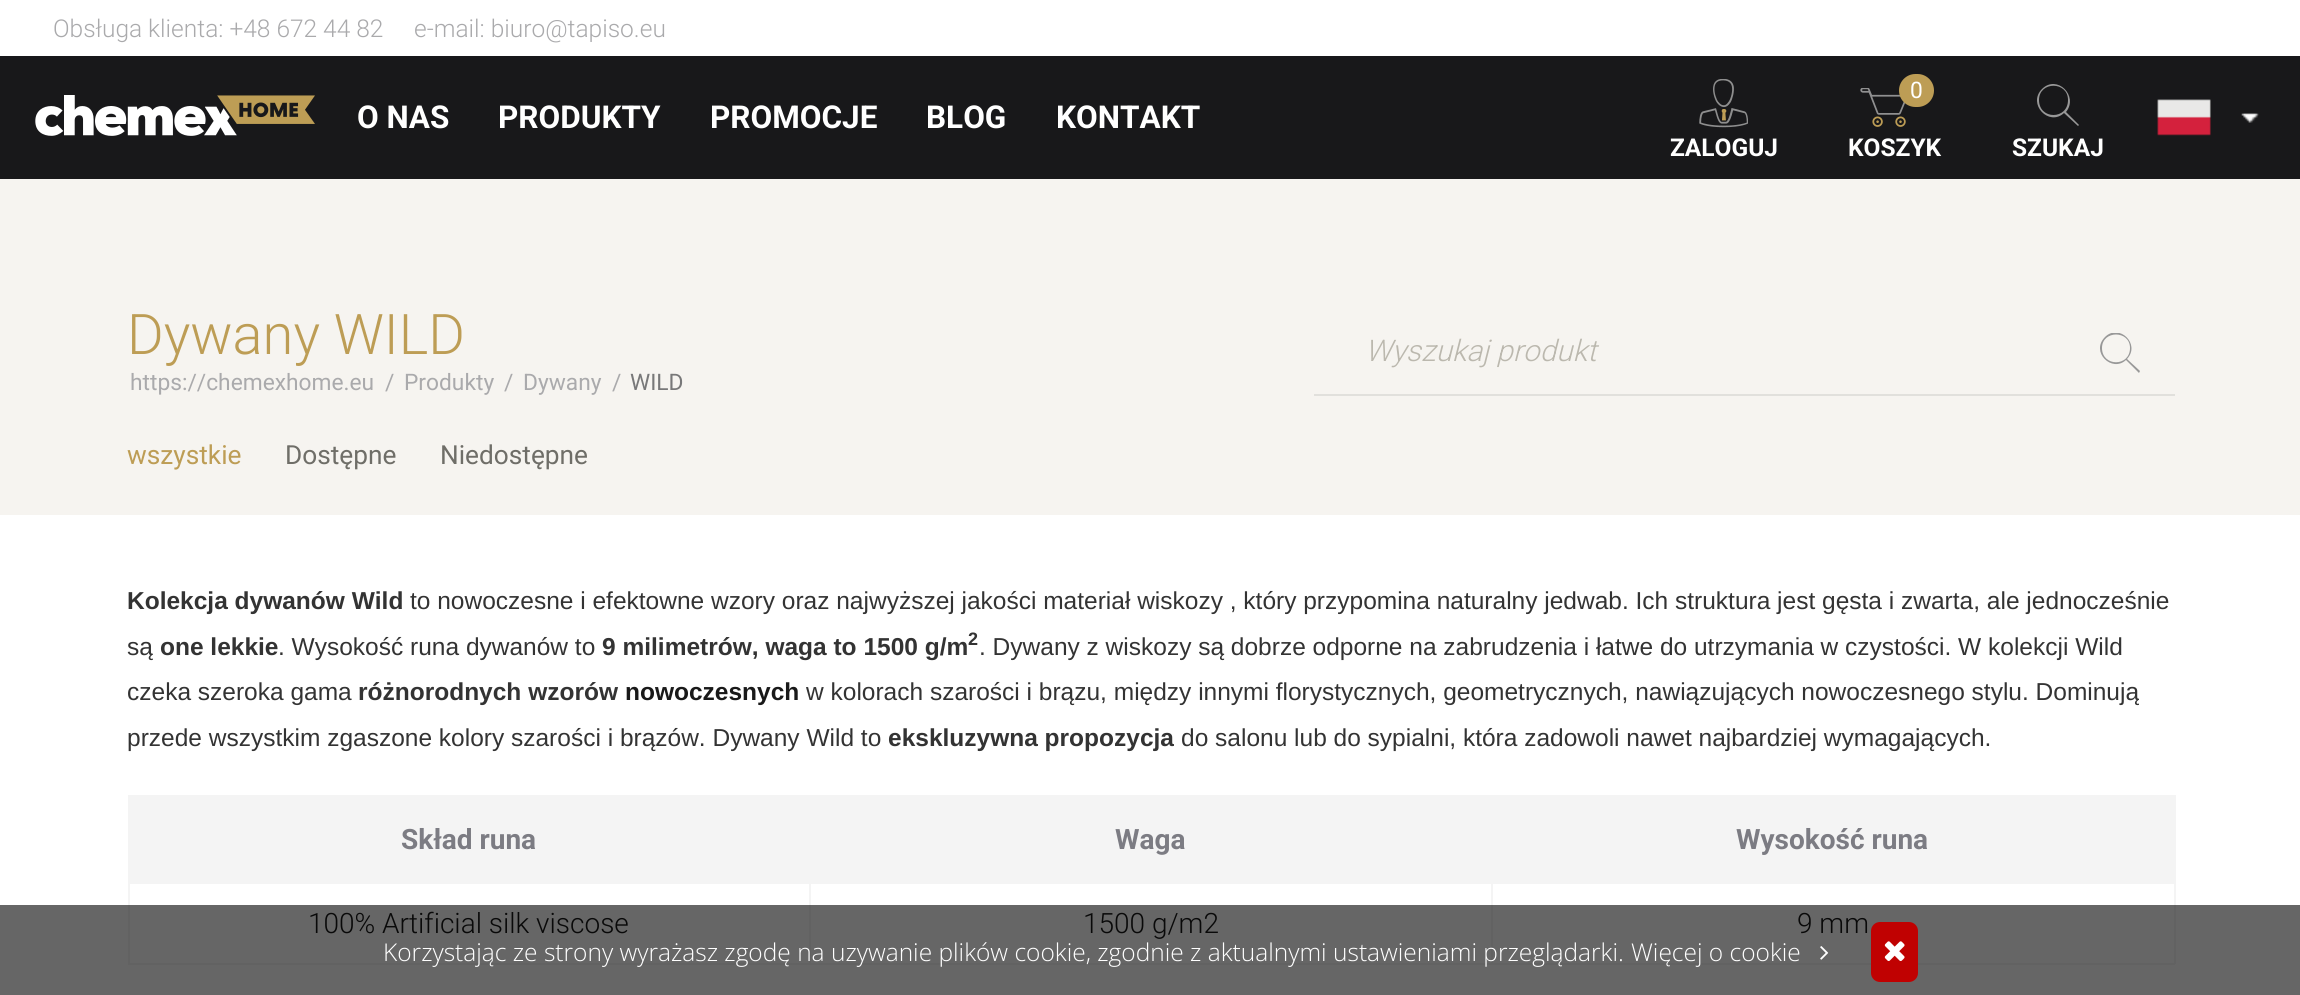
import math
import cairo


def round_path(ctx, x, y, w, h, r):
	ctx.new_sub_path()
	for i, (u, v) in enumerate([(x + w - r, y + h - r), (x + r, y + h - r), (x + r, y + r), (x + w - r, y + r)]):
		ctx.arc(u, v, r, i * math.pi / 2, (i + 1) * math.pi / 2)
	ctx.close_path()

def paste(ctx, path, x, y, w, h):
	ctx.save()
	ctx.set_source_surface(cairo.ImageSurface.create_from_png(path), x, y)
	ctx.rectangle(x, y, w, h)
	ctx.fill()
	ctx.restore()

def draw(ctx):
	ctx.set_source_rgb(1, 1, 1)
	ctx.paint()
	ctx.set_source_rgb(0.4, 0.4, 0.4)
	ctx.rectangle(0, 905, 2300, 90)
	ctx.fill()
	ctx.select_font_face('Roboto Light')
	ctx.set_font_size(24.5)
	ctx.set_source_rgb(0.667, 0.667, 0.675)
	ctx.move_to(53, 37)
	ctx.show_text('Obsługa klienta: +48 672 44 82')
	ctx.move_to(414, 37)
	ctx.show_text('e-mail: biuro@tapiso.eu')
	ctx.set_source_rgb(0.094, 0.094, 0.102)
	ctx.rectangle(0, 56, 2300, 123)
	ctx.fill()
	paste(ctx, 'media/1.png', 35, 95, 280, 41)
	ctx.select_font_face('Roboto', cairo.FONT_SLANT_NORMAL, cairo.FONT_WEIGHT_BOLD)
	ctx.set_font_size(31.5)
	ctx.set_source_rgb(1, 1, 1)
	for x, y, s in [
		(357, 128, 'O NAS'),
		(498, 128, 'PRODUKTY'),
		(710, 128, 'PROMOCJE'),
		(926, 128, 'BLOG'),
		(1056, 128, 'KONTAKT'),
	]:
		ctx.move_to(x, y)
		ctx.show_text(s)
	paste(ctx, 'media/2.png', 1860, 88, 46, 39)
	ctx.set_source_rgb(0.741, 0.616, 0.333)
	round_path(ctx, 1899, 74, 35, 33, 16.5)
	ctx.fill()
	ctx.select_font_face('Roboto')
	ctx.set_font_size(22.75)
	ctx.set_source_rgb(1, 1, 1)
	ctx.move_to(1910, 98)
	ctx.show_text('0')
	ctx.select_font_face('Roboto', cairo.FONT_SLANT_NORMAL, cairo.FONT_WEIGHT_BOLD)
	ctx.set_font_size(24.5)
	ctx.move_to(1848, 156)
	ctx.show_text('KOSZYK')
	paste(ctx, 'media/3.png', 2157, 99, 54, 37)
	paste(ctx, 'media/4.png', 2241, 113, 18, 10)
	paste(ctx, 'media/5.png', 1699, 79, 49, 49)
	ctx.move_to(1670, 156)
	ctx.show_text('ZALOGUJ')
	ctx.set_source_rgb(0.596, 0.596, 0.596)
	ctx.new_path()
	ctx.move_to(2068, 100)
	ctx.curve_to(2068, 81, 2039, 81, 2039, 100)
	ctx.curve_to(2039, 120, 2068, 120, 2068, 100)
	ctx.close_path()
	ctx.move_to(2079, 125)
	ctx.line_to(2078, 126)
	ctx.line_to(2064, 113)
	ctx.curve_to(2049, 127, 2027, 104, 2042, 89)
	ctx.curve_to(2057, 74, 2079, 96, 2066, 112)
	ctx.close_path()
	ctx.fill()
	ctx.set_source_rgb(1, 1, 1)
	ctx.move_to(2012, 156)
	ctx.show_text('SZUKAJ')
	ctx.set_source_rgb(0.961, 0.957, 0.941)
	ctx.rectangle(0, 179, 2300, 336)
	ctx.fill()
	ctx.select_font_face('Roboto Light')
	ctx.set_font_size(56)
	ctx.set_source_rgb(0.741, 0.616, 0.333)
	ctx.move_to(127, 354)
	ctx.show_text('Dywany WILD')
	ctx.select_font_face('Roboto')
	ctx.set_font_size(22.75)
	ctx.set_source_rgb(0.667, 0.667, 0.675)
	for x, y, s in [
		(130, 390, 'https://chemexhome.eu'),
		(385, 390, '/'),
		(404, 390, 'Produkty'),
		(504, 390, '/'),
		(523, 390, 'Dywany'),
		(612, 390, '/'),
	]:
		ctx.move_to(x, y)
		ctx.show_text(s)
	ctx.set_source_rgb(0.471, 0.471, 0.475)
	ctx.move_to(630, 390)
	ctx.show_text('WILD')
	ctx.set_font_size(26.25)
	ctx.set_source_rgb(0.741, 0.616, 0.333)
	ctx.move_to(127, 464)
	ctx.show_text('wszystkie')
	ctx.set_source_rgb(0.435, 0.431, 0.408)
	ctx.move_to(285, 464)
	ctx.show_text('Dostępne')
	ctx.move_to(440, 464)
	ctx.show_text('Niedostępne')
	ctx.set_source_rgb(0.882, 0.878, 0.863)
	ctx.rectangle(1314, 394, 861, 2)
	ctx.fill()
	ctx.select_font_face('Roboto Light', cairo.FONT_SLANT_ITALIC)
	ctx.set_font_size(29.75)
	ctx.set_source_rgb(0.733, 0.722, 0.682)
	ctx.move_to(1365, 361)
	ctx.show_text('Wyszukaj produkt')
	ctx.save()
	ctx.rectangle(2100, 333, 40, 40)
	ctx.clip()
	ctx.set_source_rgb(0.596, 0.596, 0.596)
	ctx.new_path()
	ctx.move_to(2130, 348)
	ctx.curve_to(2130, 330, 2102, 330, 2102, 348)
	ctx.curve_to(2102, 367, 2130, 367, 2130, 348)
	ctx.close_path()
	ctx.move_to(2140, 371)
	ctx.line_to(2139, 373)
	ctx.line_to(2126, 360)
	ctx.curve_to(2112, 373, 2090, 352, 2105, 337)
	ctx.curve_to(2119, 323, 2141, 344, 2127, 359)
	ctx.close_path()
	ctx.fill()
	ctx.restore()
	ctx.select_font_face('Liberation Sans', cairo.FONT_SLANT_NORMAL, cairo.FONT_WEIGHT_BOLD)
	ctx.set_font_size(24.5)
	ctx.set_source_rgb(0.2, 0.2, 0.2)
	ctx.move_to(127, 609)
	ctx.show_text('Kolekcja dywanów Wild')
	ctx.select_font_face('Liberation Sans')
	ctx.move_to(410, 609)
	ctx.show_text('to nowoczesne i efektowne wzory oraz najwyższej jakości materiał wiskozy , który przypomina naturalny jedwab. Ich struktura jest gęsta i zwarta, ale jednocześnie')
	ctx.move_to(127, 655)
	ctx.show_text('są')
	ctx.select_font_face('Liberation Sans', cairo.FONT_SLANT_NORMAL, cairo.FONT_WEIGHT_BOLD)
	ctx.move_to(160, 655)
	ctx.show_text('one lekkie')
	ctx.select_font_face('Liberation Sans')
	ctx.move_to(278, 655)
	ctx.show_text('. Wysokość runa dywanów to')
	ctx.select_font_face('Liberation Sans', cairo.FONT_SLANT_NORMAL, cairo.FONT_WEIGHT_BOLD)
	ctx.move_to(602, 655)
	ctx.show_text('9 milimetrów, waga to 1500 g/m')
	ctx.set_font_size(18)
	ctx.move_to(968, 645)
	ctx.show_text('2')
	ctx.select_font_face('Liberation Sans')
	ctx.set_font_size(24.5)
	ctx.move_to(979, 655)
	ctx.show_text('. Dywany z wiskozy są dobrze odporne na zabrudzenia i łatwe do utrzymania w czystości. W kolekcji Wild')
	ctx.move_to(127, 700)
	ctx.show_text('czeka szeroka gama')
	ctx.select_font_face('Liberation Sans', cairo.FONT_SLANT_NORMAL, cairo.FONT_WEIGHT_BOLD)
	ctx.move_to(358, 700)
	ctx.show_text('różnorodnych wzorów')
	ctx.set_source_rgb(0.098, 0.098, 0.098)
	ctx.move_to(625, 700)
	ctx.show_text('nowoczesnych')
	ctx.select_font_face('Liberation Sans')
	ctx.set_source_rgb(0.2, 0.2, 0.2)
	ctx.move_to(806, 700)
	ctx.show_text('w kolorach szarości i brązu, między innymi florystycznych, geometrycznych, nawiązujących nowoczesnego stylu. Dominują')
	ctx.move_to(127, 746)
	ctx.show_text('przede wszystkim zgaszone kolory szarości i brązów. Dywany Wild to')
	ctx.select_font_face('Liberation Sans', cairo.FONT_SLANT_NORMAL, cairo.FONT_WEIGHT_BOLD)
	ctx.move_to(888, 746)
	ctx.show_text('ekskluzywna propozycja')
	ctx.select_font_face('Liberation Sans')
	ctx.move_to(1181, 746)
	ctx.show_text('do salonu lub do sypialni, która zadowoli nawet najbardziej wymagających.')
	ctx.set_source_rgb(0.957, 0.957, 0.957)
	ctx.rectangle(128, 797, 1363, 87)
	ctx.fill()
	ctx.select_font_face('Roboto', cairo.FONT_SLANT_NORMAL, cairo.FONT_WEIGHT_BOLD)
	ctx.set_font_size(28)
	ctx.set_source_rgb(0.486, 0.486, 0.514)
	ctx.move_to(401, 849)
	ctx.show_text('Skład runa')
	ctx.move_to(1115, 849)
	ctx.show_text('Waga')
	ctx.set_source_rgb(0.957, 0.957, 0.957)
	ctx.rectangle(1491, 797, 683, 85)
	ctx.rectangle(128, 795, 2047, 2)
	ctx.rectangle(1491, 882, 684, 2)
	ctx.rectangle(2174, 882, 2, 23)
	ctx.rectangle(2174, 795, 2, 89)
	ctx.fill()
	ctx.set_source_rgb(0.486, 0.486, 0.514)
	ctx.move_to(1736, 849)
	ctx.show_text('Wysokość runa')
	ctx.set_source_rgb(0.384, 0.384, 0.384)
	ctx.rectangle(2174, 905, 2, 59)
	ctx.rectangle(1491, 963, 684, 2)
	ctx.rectangle(1491, 905, 2, 59)
	ctx.rectangle(809, 963, 684, 2)
	ctx.rectangle(809, 905, 2, 59)
	ctx.rectangle(128, 963, 682, 2)
	ctx.fill()
	ctx.set_source_rgb(0.957, 0.957, 0.957)
	ctx.rectangle(128, 882, 2, 23)
	ctx.fill()
	ctx.set_source_rgb(0.384, 0.384, 0.384)
	ctx.rectangle(128, 905, 2, 59)
	ctx.fill()
	ctx.select_font_face('Roboto Light')
	ctx.set_source_rgb(0.039, 0.039, 0.039)
	ctx.move_to(308, 933)
	ctx.show_text('100% Artificial silk viscose')
	ctx.set_source_rgb(0.957, 0.957, 0.957)
	ctx.rectangle(809, 882, 2, 23)
	ctx.fill()
	ctx.set_source_rgb(0.039, 0.039, 0.039)
	ctx.move_to(1083, 933)
	ctx.show_text('1500 g/m2')
	ctx.set_source_rgb(0.957, 0.957, 0.957)
	ctx.rectangle(1491, 882, 2, 23)
	ctx.fill()
	ctx.set_source_rgb(0.039, 0.039, 0.039)
	ctx.move_to(1797, 933)
	ctx.show_text('9 mm')
	ctx.select_font_face('Open Sans Light')
	ctx.set_font_size(24.5)
	ctx.set_source_rgb(1, 1, 1)
	ctx.move_to(383, 961)
	ctx.show_text('Korzystając ze strony wyrażasz zgodę na uzywanie plików cookie, zgodnie z aktualnymi ustawieniami przeglądarki.')
	ctx.move_to(1631, 961)
	ctx.show_text('Więcej o cookie')
	paste(ctx, 'media/6.png', 1820, 946, 9, 14)
	ctx.set_source_rgb(0.753, 0.004, 0.004)
	round_path(ctx, 1871, 922, 47, 60, 9)
	ctx.fill()
	paste(ctx, 'media/7.png', 1884, 941, 21, 20)


surface = cairo.ImageSurface(cairo.FORMAT_RGB24, 2300, 995)
ctx = cairo.Context(surface)
options = cairo.FontOptions()
options.set_hint_metrics(cairo.HINT_METRICS_OFF)
options.set_hint_style(cairo.HINT_STYLE_NONE)
ctx.set_font_options(options)
ctx.set_miter_limit(4)
draw(ctx)
surface.write_to_png('image.png')
